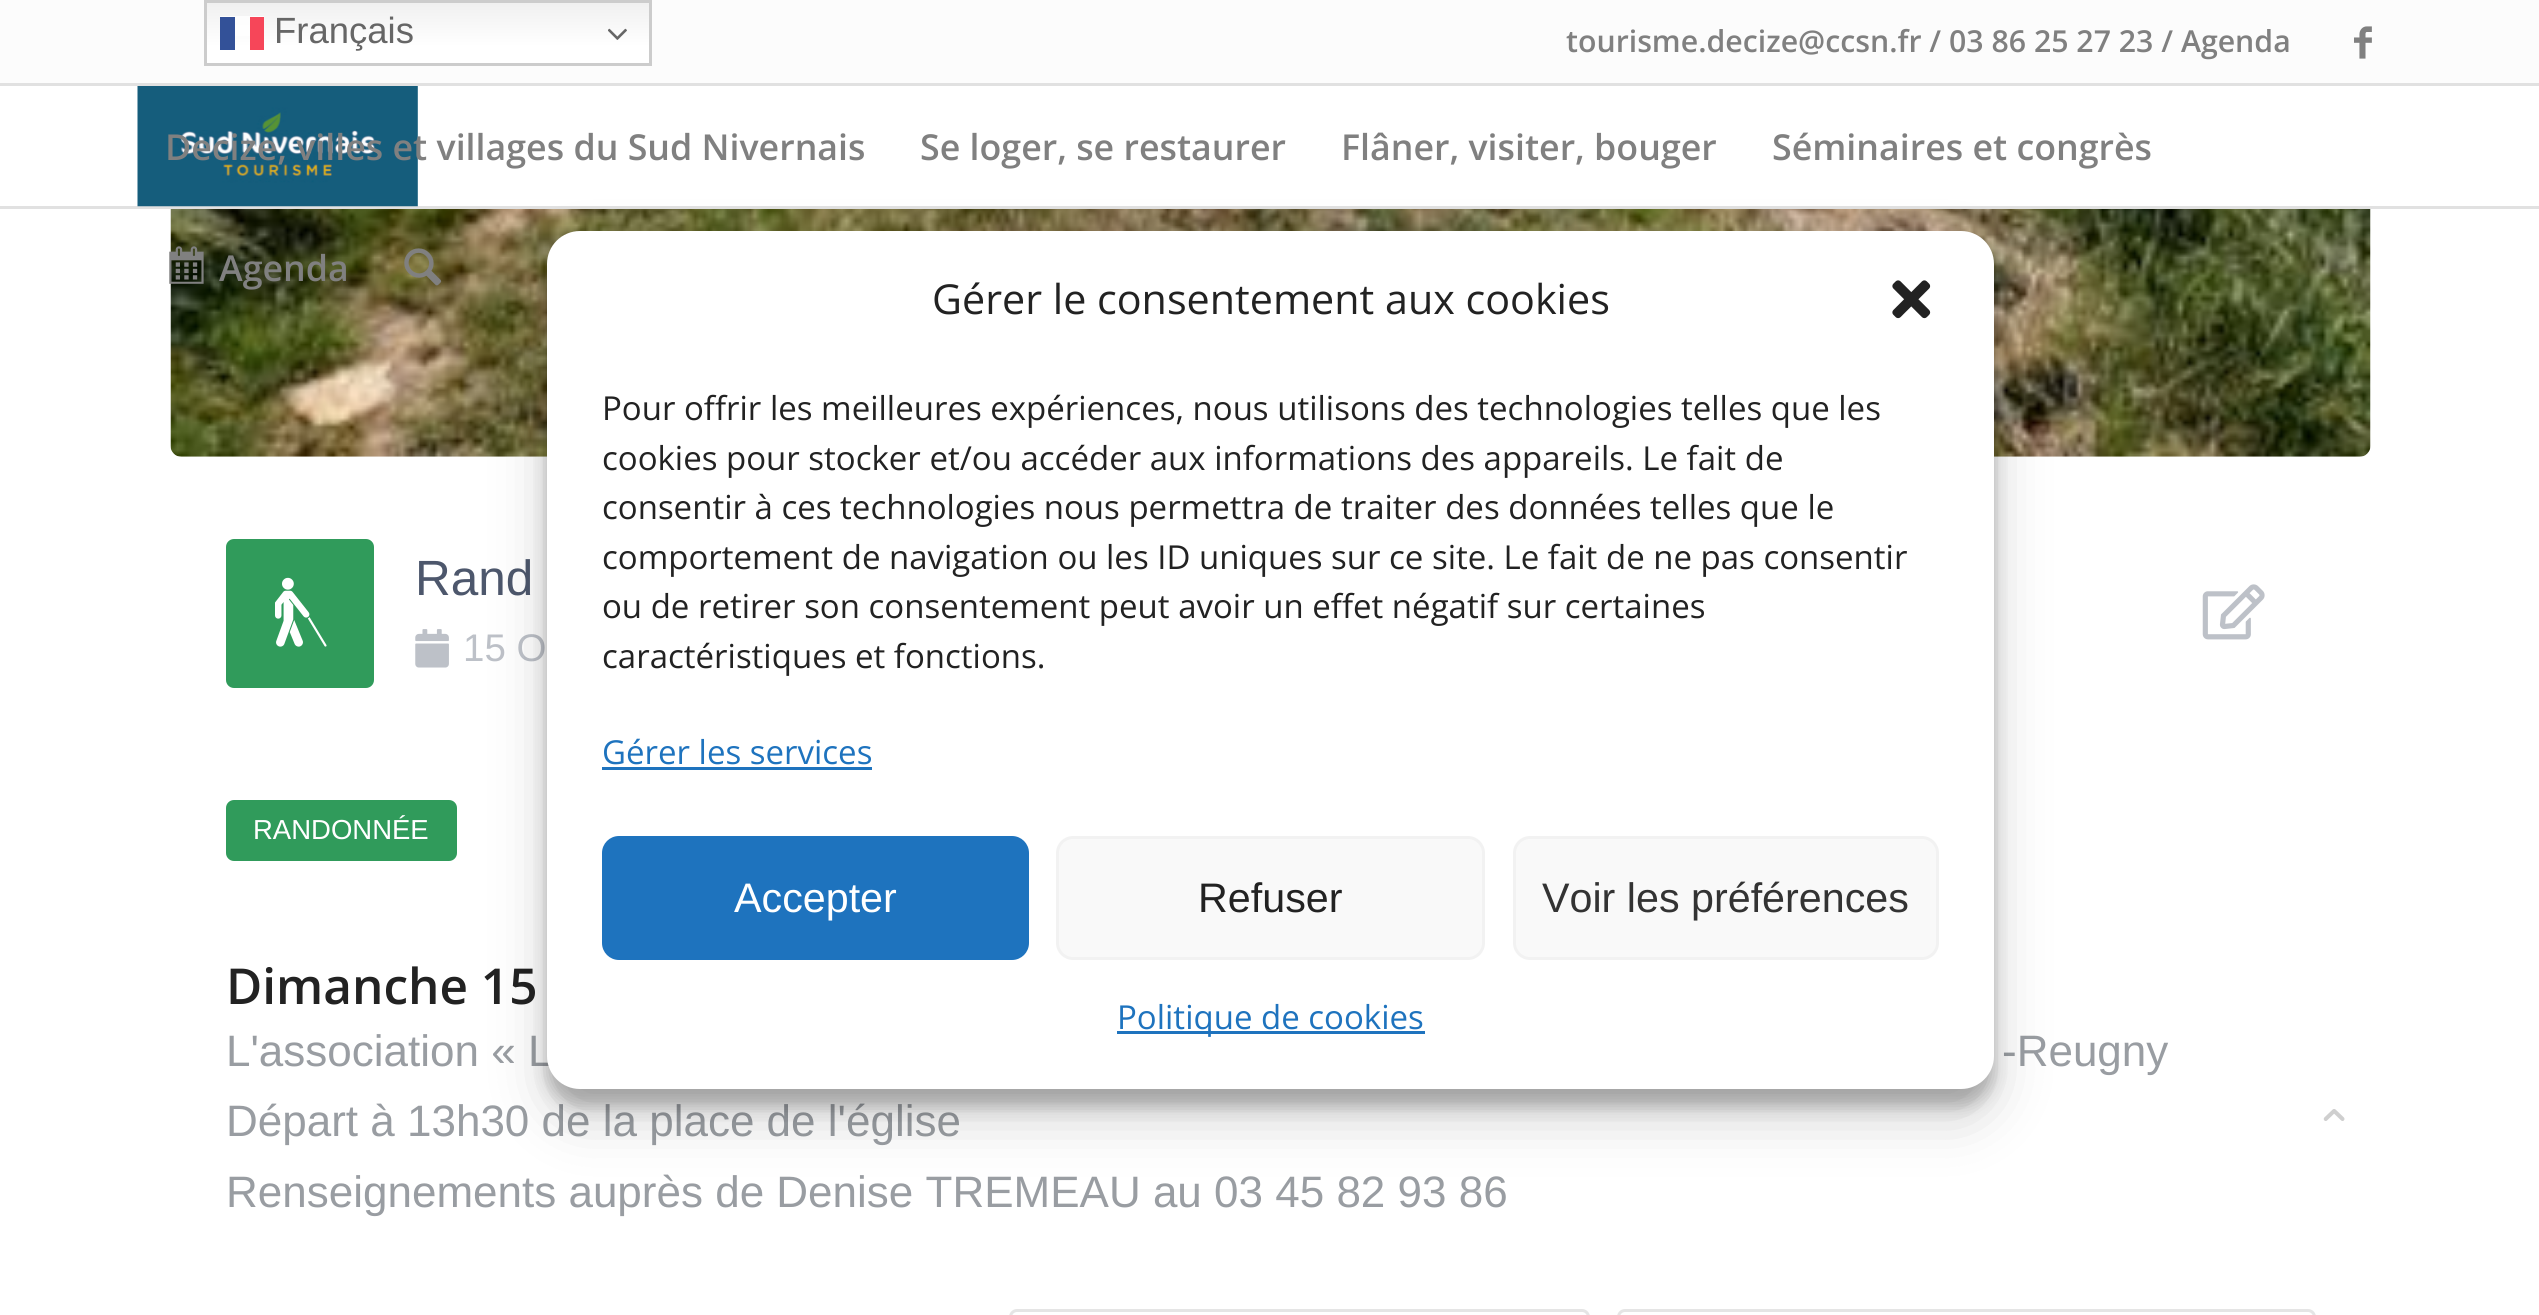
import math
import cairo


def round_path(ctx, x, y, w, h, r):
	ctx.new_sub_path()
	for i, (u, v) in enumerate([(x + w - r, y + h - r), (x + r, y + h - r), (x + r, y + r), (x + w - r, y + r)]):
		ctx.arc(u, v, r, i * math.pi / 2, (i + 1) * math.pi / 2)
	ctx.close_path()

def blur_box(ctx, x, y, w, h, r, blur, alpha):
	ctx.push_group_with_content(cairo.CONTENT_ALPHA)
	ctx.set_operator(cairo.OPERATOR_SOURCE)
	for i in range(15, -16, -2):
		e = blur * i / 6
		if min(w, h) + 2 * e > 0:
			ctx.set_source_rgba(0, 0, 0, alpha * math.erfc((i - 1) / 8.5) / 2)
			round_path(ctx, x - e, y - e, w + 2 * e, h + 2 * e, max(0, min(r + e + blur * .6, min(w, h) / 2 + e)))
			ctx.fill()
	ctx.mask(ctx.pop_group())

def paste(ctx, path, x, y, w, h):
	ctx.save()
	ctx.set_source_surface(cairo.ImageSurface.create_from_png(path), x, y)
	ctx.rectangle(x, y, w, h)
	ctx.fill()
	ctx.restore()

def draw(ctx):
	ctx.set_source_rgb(1, 1, 1)
	ctx.paint()
	ctx.set_source_rgb(0.988, 0.988, 0.988)
	ctx.rectangle(0, 0, 2539, 83)
	ctx.fill()
	gradient = cairo.LinearGradient(428, 0, 428, 66)
	gradient.add_color_stop_rgba(0, 0.937, 0.937, 0.937, 1)
	gradient.add_color_stop_rgba(0.7, 1, 1, 1, 1)
	ctx.set_source(gradient)
	ctx.rectangle(207, 3, 442, 60)
	ctx.fill()
	ctx.rectangle(205.5, 1.5, 445, 63)
	ctx.set_source_rgb(0.8, 0.8, 0.8)
	ctx.set_line_width(3)
	ctx.stroke()
	ctx.set_source_rgba(1, 1, 1, 0.8)
	ctx.rectangle(220, 16, 44, 20)
	ctx.fill()
	ctx.select_font_face('Liberation Sans')
	ctx.set_font_size(36.5)
	ctx.set_source_rgb(0.4, 0.4, 0.4)
	ctx.move_to(274, 43)
	ctx.show_text('Français')
	ctx.set_source_rgb(0.2, 0.318, 0.596)
	ctx.rectangle(220, 17, 15, 33)
	ctx.fill()
	ctx.set_source_rgb(0.961, 0.275, 0.349)
	ctx.rectangle(250, 17, 14, 33)
	ctx.fill()
	paste(ctx, 'media/1.png', 608, 28, 19, 12)
	ctx.set_source_rgb(0.882, 0.882, 0.882)
	ctx.rectangle(0, 83, 2539, 3)
	ctx.fill()
	ctx.select_font_face('Open Sans SemiBold')
	ctx.set_font_size(30.25)
	ctx.set_source_rgb(0.502, 0.502, 0.502)
	ctx.move_to(1566, 52)
	ctx.show_text('tourisme.decize@ccsn.fr / 03 86 25 27 23 / Agenda')
	paste(ctx, 'media/2.png', 2354, 26, 18, 33)
	ctx.set_source_rgb(0.882, 0.882, 0.882)
	ctx.rectangle(0, 206, 2539, 3)
	ctx.fill()
	paste(ctx, 'media/3.png', 137, 86, 281, 121)
	ctx.set_font_size(35.75)
	ctx.set_source_rgb(0.502, 0.502, 0.502)
	for x, y, s in [
		(165, 160, 'Decize, villes et villages du Sud Nivernais'),
		(920, 160, 'Se loger, se restaurer'),
		(1341, 160, 'Flâner, visiter, bouger'),
		(1772, 160, 'Séminaires et congrès'),
	]:
		ctx.move_to(x, y)
		ctx.show_text(s)
	paste(ctx, 'media/6.png', 170, 209, 2201, 248)
	paste(ctx, 'media/4.png', 169, 246, 35, 38)
	ctx.move_to(219, 281)
	ctx.show_text('Agenda')
	paste(ctx, 'media/5.png', 404, 248, 38, 38)
	ctx.set_source_rgb(0.188, 0.608, 0.357)
	round_path(ctx, 226, 539, 148, 149, 8)
	ctx.fill()
	paste(ctx, 'media/7.png', 275, 577, 52, 70)
	ctx.select_font_face('Liberation Sans')
	ctx.set_font_size(49.5)
	ctx.set_source_rgb(0.302, 0.341, 0.424)
	ctx.move_to(415, 595)
	ctx.show_text('Rand')
	paste(ctx, 'media/8.png', 415, 629, 34, 39)
	ctx.set_font_size(38.5)
	ctx.set_source_rgb(0.741, 0.757, 0.784)
	ctx.move_to(463, 661)
	ctx.show_text('15 O')
	paste(ctx, 'media/9.png', 2202, 584, 63, 56)
	ctx.set_source_rgb(0.188, 0.608, 0.357)
	round_path(ctx, 226, 800, 231, 61, 8)
	ctx.fill()
	ctx.set_font_size(27.5)
	ctx.set_source_rgb(1, 1, 1)
	ctx.move_to(253, 839)
	ctx.show_text('RANDONNÉE')
	ctx.select_font_face('Open Sans SemiBold')
	ctx.set_font_size(49.5)
	ctx.set_source_rgb(0.133, 0.133, 0.133)
	ctx.move_to(226, 1004)
	ctx.show_text('Dimanche 15')
	ctx.select_font_face('Liberation Sans')
	ctx.set_font_size(44)
	ctx.set_source_rgb(0.6, 0.616, 0.635)
	for x, y, s in [
		(226, 1066, 'L\'association « L'),
		(2002, 1066, '-Reugny'),
		(226, 1136, 'Départ à 13h30 de la place de l\'église'),
		(226, 1207, 'Renseignements auprès de Denise TREMEAU au 03 45 82 93 86'),
	]:
		ctx.move_to(x, y)
		ctx.show_text(s)
	round_path(ctx, 1010.5, 1310.5, 578, 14, 6.5)
	ctx.set_source_rgb(0.898, 0.898, 0.898)
	ctx.stroke()
	round_path(ctx, 1618.5, 1310.5, 696, 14, 6.5)
	ctx.stroke()
	ctx.set_source_rgb(0, 0, 0)
	blur_box(ctx, 547, 248, 1447, 858, 33, 8, 0.23)
	blur_box(ctx, 547, 259, 1447, 858, 33, 27.5, 0.19)
	ctx.set_source_rgb(1, 1, 1)
	round_path(ctx, 547, 231, 1447, 858, 33)
	ctx.fill()
	ctx.select_font_face('Open Sans')
	ctx.set_font_size(41.25)
	ctx.set_source_rgb(0.133, 0.133, 0.133)
	ctx.move_to(932, 314)
	ctx.show_text('Gérer le consentement aux cookies')
	paste(ctx, 'media/10.png', 1892, 280, 39, 39)
	ctx.set_font_size(33)
	for x, y, s in [
		(602, 420, 'Pour offrir les meilleures expériences, nous utilisons des technologies telles que les'),
		(602, 470, 'cookies pour stocker et/ou accéder aux informations des appareils. Le fait de'),
		(602, 519, 'consentir à ces technologies nous permettra de traiter des données telles que le'),
		(602, 569, 'comportement de navigation ou les ID uniques sur ce site. Le fait de ne pas consentir'),
		(602, 618, 'ou de retirer son consentement peut avoir un effet négatif sur certaines'),
		(602, 668, 'caractéristiques et fonctions.'),
	]:
		ctx.move_to(x, y)
		ctx.show_text(s)
	ctx.set_source_rgb(0.118, 0.451, 0.745)
	ctx.move_to(602, 764)
	ctx.show_text('Gérer les services')
	ctx.rectangle(602, 767, 270, 3)
	ctx.fill()
	round_path(ctx, 603.5, 837.5, 424, 121, 15.5)
	ctx.fill_preserve()
	ctx.stroke()
	ctx.select_font_face('Liberation Sans')
	ctx.set_font_size(41.25)
	ctx.set_source_rgb(1, 1, 1)
	ctx.move_to(734, 912)
	ctx.show_text('Accepter')
	ctx.set_source_rgb(0.976, 0.976, 0.976)
	round_path(ctx, 1057.5, 837.5, 426, 121, 15.5)
	ctx.fill_preserve()
	ctx.set_source_rgb(0.949, 0.949, 0.949)
	ctx.stroke()
	ctx.set_source_rgb(0.133, 0.133, 0.133)
	ctx.move_to(1198, 912)
	ctx.show_text('Refuser')
	ctx.set_source_rgb(0.976, 0.976, 0.976)
	round_path(ctx, 1514.5, 837.5, 423, 121, 15.5)
	ctx.fill_preserve()
	ctx.set_source_rgb(0.949, 0.949, 0.949)
	ctx.stroke()
	ctx.set_source_rgb(0.2, 0.2, 0.2)
	ctx.move_to(1542, 912)
	ctx.show_text('Voir les préférences')
	ctx.set_source_rgb(0.118, 0.451, 0.745)
	ctx.rectangle(1117, 1031, 308, 3)
	ctx.fill()
	ctx.select_font_face('Open Sans')
	ctx.set_font_size(33)
	ctx.move_to(1117, 1029)
	ctx.show_text('Politique de cookies')
	paste(ctx, 'media/11.png', 2323, 1109, 22, 12)


surface = cairo.ImageSurface(cairo.FORMAT_RGB24, 2539, 1315)
ctx = cairo.Context(surface)
options = cairo.FontOptions()
options.set_hint_metrics(cairo.HINT_METRICS_OFF)
options.set_hint_style(cairo.HINT_STYLE_NONE)
ctx.set_font_options(options)
ctx.set_miter_limit(4)
draw(ctx)
surface.write_to_png('image.png')
